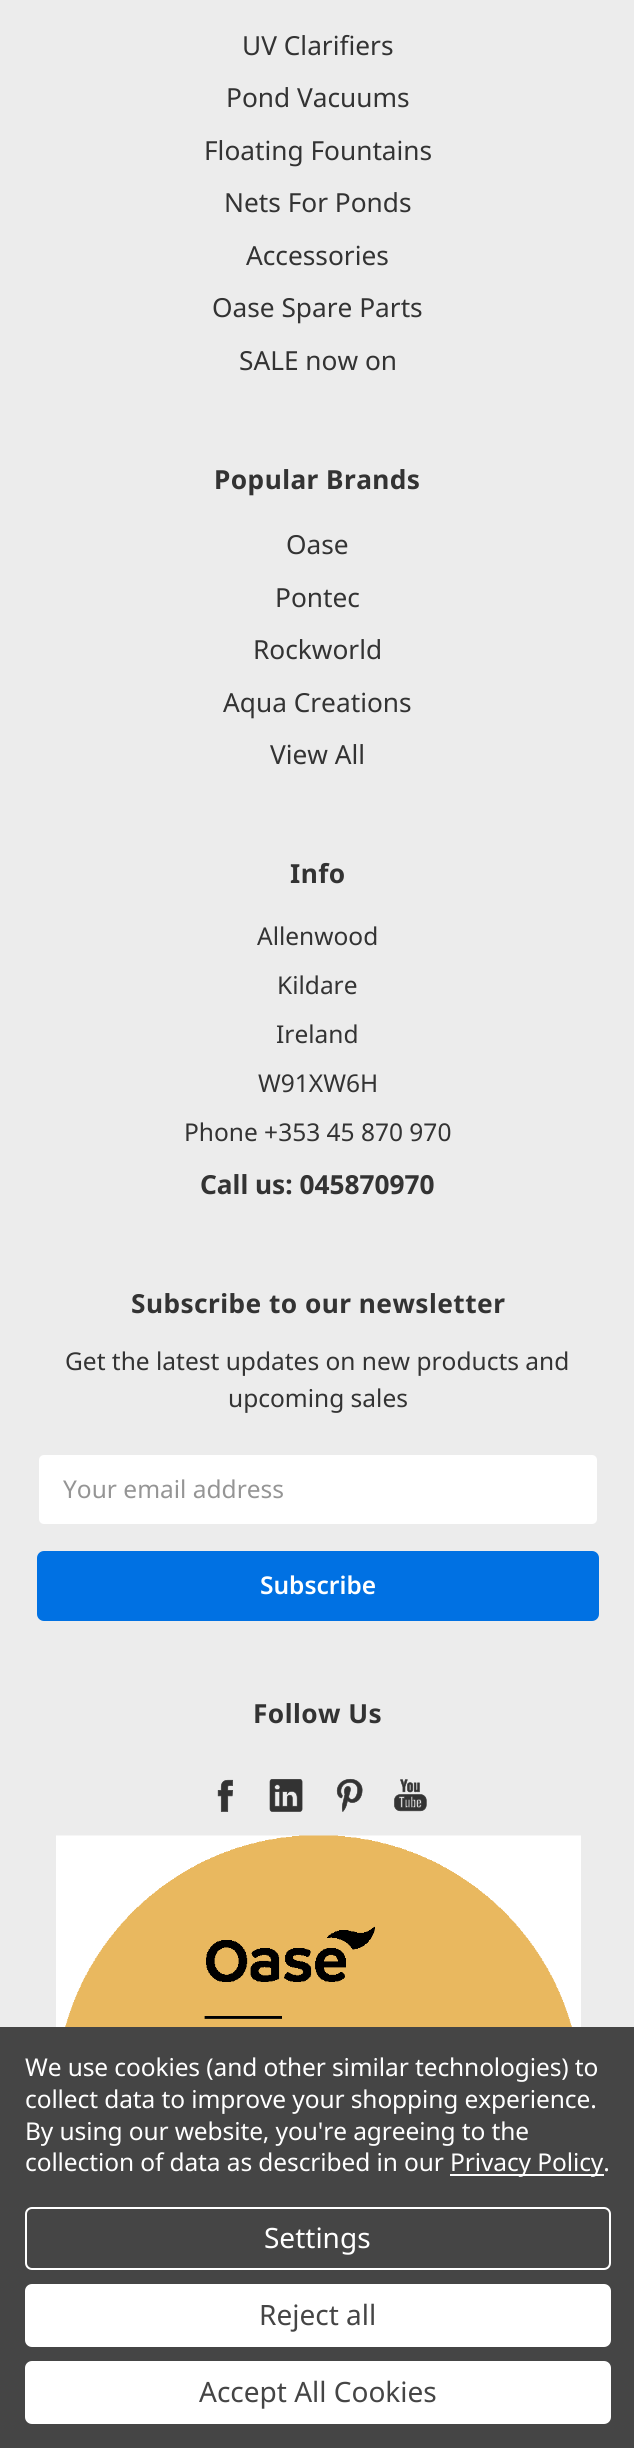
import math
import cairo


def write_spaced(ctx, x, y, s, letter, word):
	ctx.move_to(x, y)
	for ch in s:
		ctx.show_text(ch)
		ctx.rel_move_to(letter + word * (ch == ' '), 0)

def round_path(ctx, x, y, w, h, r):
	ctx.new_sub_path()
	for i, (u, v) in enumerate([(x + w - r, y + h - r), (x + r, y + h - r), (x + r, y + r), (x + w - r, y + r)]):
		ctx.arc(u, v, r, i * math.pi / 2, (i + 1) * math.pi / 2)
	ctx.close_path()

def paste(ctx, path, x, y, w, h):
	ctx.save()
	ctx.set_source_surface(cairo.ImageSurface.create_from_png(path), x, y)
	ctx.rectangle(x, y, w, h)
	ctx.fill()
	ctx.restore()

def draw(ctx):
	ctx.set_source_rgb(0.922, 0.922, 0.922)
	ctx.paint()
	ctx.select_font_face('Noto Sans')
	ctx.set_font_size(26.25)
	ctx.set_source_rgb(0.2, 0.2, 0.2)
	for x, y, s in [
		(242, 55, 'UV Clarifiers'),
		(226, 107, 'Pond Vacuums'),
		(204, 160, 'Floating Fountains'),
		(224, 212, 'Nets For Ponds'),
		(246, 265, 'Accessories'),
		(212, 317, 'Oase Spare Parts'),
		(239, 370, 'SALE now on'),
	]:
		ctx.move_to(x, y)
		ctx.show_text(s)
	ctx.select_font_face('Noto Sans', cairo.FONT_SLANT_NORMAL, cairo.FONT_WEIGHT_BOLD)
	write_spaced(ctx, 214, 489, 'Popular Brands', 0.45, 0)
	ctx.select_font_face('Noto Sans')
	for x, y, s in [
		(286, 554, 'Oase'),
		(275, 607, 'Pontec'),
		(253, 659, 'Rockworld'),
		(223, 712, 'Aqua Creations'),
		(270, 764, 'View All'),
	]:
		ctx.move_to(x, y)
		ctx.show_text(s)
	ctx.select_font_face('Noto Sans', cairo.FONT_SLANT_NORMAL, cairo.FONT_WEIGHT_BOLD)
	write_spaced(ctx, 290, 883, 'Info', 0.45, 0)
	ctx.select_font_face('Noto Sans')
	ctx.set_font_size(24.5)
	for x, y, s in [
		(257, 945, 'Allenwood'),
		(277, 994, 'Kildare'),
		(276, 1043, 'Ireland'),
		(258, 1092, 'W91XW6H'),
		(184, 1141, 'Phone +353 45 870 970'),
	]:
		ctx.move_to(x, y)
		ctx.show_text(s)
	ctx.select_font_face('Noto Sans', cairo.FONT_SLANT_NORMAL, cairo.FONT_WEIGHT_BOLD)
	ctx.set_font_size(26.25)
	ctx.move_to(200, 1194)
	ctx.show_text('Call us: 045870970')
	write_spaced(ctx, 131, 1313, 'Subscribe to our newsletter', 0.45, 0)
	ctx.select_font_face('Noto Sans')
	ctx.set_font_size(24.5)
	ctx.move_to(65, 1370)
	ctx.show_text('Get the latest updates on new products and')
	ctx.move_to(228, 1407)
	ctx.show_text('upcoming sales')
	ctx.set_source_rgb(1, 1, 1)
	round_path(ctx, 38, 1454, 560, 71, 6)
	ctx.fill_preserve()
	ctx.set_source_rgb(0.922, 0.922, 0.922)
	ctx.stroke()
	ctx.set_source_rgb(0.584, 0.584, 0.584)
	ctx.move_to(63, 1498)
	ctx.show_text('Your email address')
	ctx.set_source_rgb(0, 0.443, 0.89)
	round_path(ctx, 38, 1552, 560, 68, 6)
	ctx.fill_preserve()
	ctx.stroke()
	ctx.select_font_face('Noto Sans SemiBold')
	ctx.set_source_rgb(1, 1, 1)
	ctx.move_to(260, 1594)
	ctx.show_text('Subscribe')
	ctx.select_font_face('Noto Sans', cairo.FONT_SLANT_NORMAL, cairo.FONT_WEIGHT_BOLD)
	ctx.set_font_size(26.25)
	ctx.set_source_rgb(0.2, 0.2, 0.2)
	write_spaced(ctx, 253, 1723, 'Follow Us', 0.45, 0)
	paste(ctx, 'media/1.png', 217, 1779, 16, 33)
	paste(ctx, 'media/2.png', 269, 1779, 34, 33)
	paste(ctx, 'media/3.png', 336, 1778, 27, 34)
	paste(ctx, 'media/4.png', 394, 1779, 33, 33)
	paste(ctx, 'media/5.png', 56, 1835, 525, 192)
	ctx.set_source_rgb(0.271, 0.271, 0.271)
	ctx.rectangle(0, 2027, 634, 421)
	ctx.fill()
	ctx.select_font_face('Noto Sans')
	ctx.set_font_size(24.5)
	ctx.set_source_rgb(1, 1, 1)
	for x, y, s in [
		(25, 2076, 'We use cookies (and other similar technologies) to'),
		(25, 2108, 'collect data to improve your shopping experience.'),
		(25, 2140, 'By using our website, you\'re agreeing to the'),
		(25, 2171, 'collection of data as described in our'),
	]:
		write_spaced(ctx, x, y, s, -0.1, 0)
	ctx.rectangle(450, 2174, 154, 2)
	ctx.fill()
	write_spaced(ctx, 450, 2171, 'Privacy Policy.', -0.1, 0)
	round_path(ctx, 26, 2208, 584, 61, 6)
	ctx.stroke()
	ctx.set_font_size(28)
	ctx.move_to(264, 2248)
	ctx.show_text('Settings')
	round_path(ctx, 25, 2284, 586, 63, 7)
	ctx.fill()
	ctx.set_source_rgb(0.271, 0.271, 0.271)
	ctx.move_to(259, 2325)
	ctx.show_text('Reject all')
	ctx.set_source_rgb(1, 1, 1)
	round_path(ctx, 25, 2361, 586, 63, 7)
	ctx.fill()
	ctx.set_source_rgb(0.271, 0.271, 0.271)
	ctx.move_to(199, 2402)
	ctx.show_text('Accept All Cookies')


surface = cairo.ImageSurface(cairo.FORMAT_RGB24, 634, 2448)
ctx = cairo.Context(surface)
options = cairo.FontOptions()
options.set_hint_metrics(cairo.HINT_METRICS_OFF)
options.set_hint_style(cairo.HINT_STYLE_NONE)
ctx.set_font_options(options)
ctx.set_miter_limit(4)
draw(ctx)
surface.write_to_png('image.png')
